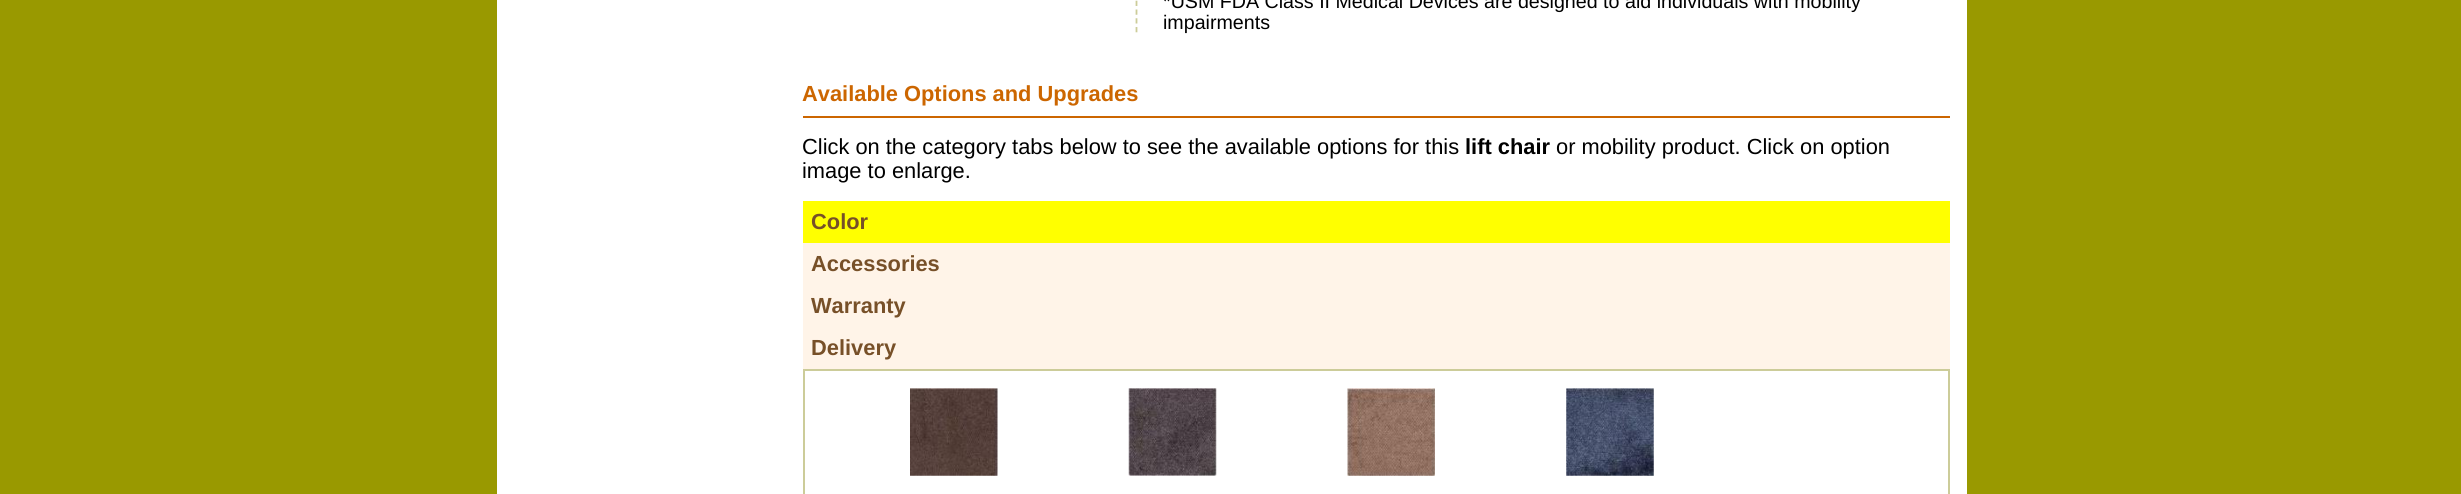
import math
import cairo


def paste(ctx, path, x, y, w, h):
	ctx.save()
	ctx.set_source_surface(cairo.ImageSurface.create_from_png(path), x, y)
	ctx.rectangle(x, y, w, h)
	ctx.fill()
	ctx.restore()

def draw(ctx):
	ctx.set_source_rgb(0.6, 0.6, 0)
	ctx.paint()
	ctx.set_source_rgb(1, 1, 1)
	ctx.rectangle(497, 0, 1470, 494)
	ctx.fill()
	ctx.new_path()
	ctx.move_to(1136.5, -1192)
	ctx.line_to(1136.5, 33)
	ctx.set_source_rgb(0.8, 0.8, 0.6)
	ctx.set_line_width(1.8)
	ctx.set_dash([5.25, 3.52])
	ctx.stroke()
	ctx.select_font_face('Liberation Sans')
	ctx.set_font_size(19.65)
	ctx.set_source_rgb(0, 0, 0)
	ctx.move_to(1163, 8)
	ctx.show_text('*USM FDA Class II Medical Devices are designed to aid individuals with mobility')
	ctx.move_to(1163, 29)
	ctx.show_text('impairments')
	ctx.set_source_rgb(0.8, 0.4, 0)
	ctx.rectangle(803, 116, 1147, 2)
	ctx.fill()
	ctx.select_font_face('Liberation Sans', cairo.FONT_SLANT_NORMAL, cairo.FONT_WEIGHT_BOLD)
	ctx.set_font_size(21.85)
	ctx.move_to(802, 101)
	ctx.show_text('Available Options and Upgrades')
	ctx.select_font_face('Liberation Sans')
	ctx.set_source_rgb(0, 0, 0)
	ctx.move_to(802, 154)
	ctx.show_text('Click on the category tabs below to see the available options for this')
	ctx.select_font_face('Liberation Sans', cairo.FONT_SLANT_NORMAL, cairo.FONT_WEIGHT_BOLD)
	ctx.move_to(1465, 154)
	ctx.show_text('lift chair')
	ctx.select_font_face('Liberation Sans')
	ctx.move_to(1556, 154)
	ctx.show_text('or mobility product. Click on option')
	ctx.move_to(802, 178)
	ctx.show_text('image to enlarge.')
	ctx.set_source_rgb(1, 1, 0)
	ctx.rectangle(803, 201, 1147, 42)
	ctx.fill()
	ctx.select_font_face('Liberation Sans', cairo.FONT_SLANT_NORMAL, cairo.FONT_WEIGHT_BOLD)
	ctx.set_source_rgb(0.467, 0.314, 0.157)
	ctx.move_to(811, 229)
	ctx.show_text('Color')
	ctx.set_source_rgb(1, 0.957, 0.91)
	ctx.rectangle(803, 243, 1147, 126)
	ctx.fill()
	ctx.set_source_rgb(0.467, 0.314, 0.157)
	for x, y, s in [
		(811, 271, 'Accessories'),
		(811, 313, 'Warranty'),
		(811, 355, 'Delivery'),
	]:
		ctx.move_to(x, y)
		ctx.show_text(s)
	ctx.rectangle(804, 370, 1145, 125)
	ctx.set_source_rgb(0.8, 0.8, 0.6)
	ctx.set_line_width(2)
	ctx.set_dash([])
	ctx.stroke()
	paste(ctx, 'media/1.png', 910, 388, 88, 88)
	paste(ctx, 'media/2.png', 1128, 388, 89, 88)
	paste(ctx, 'media/3.png', 1347, 388, 88, 88)
	paste(ctx, 'media/4.png', 1566, 388, 88, 88)


surface = cairo.ImageSurface(cairo.FORMAT_RGB24, 2461, 494)
ctx = cairo.Context(surface)
options = cairo.FontOptions()
options.set_hint_metrics(cairo.HINT_METRICS_OFF)
options.set_hint_style(cairo.HINT_STYLE_NONE)
ctx.set_font_options(options)
ctx.set_miter_limit(4)
draw(ctx)
surface.write_to_png('image.png')
